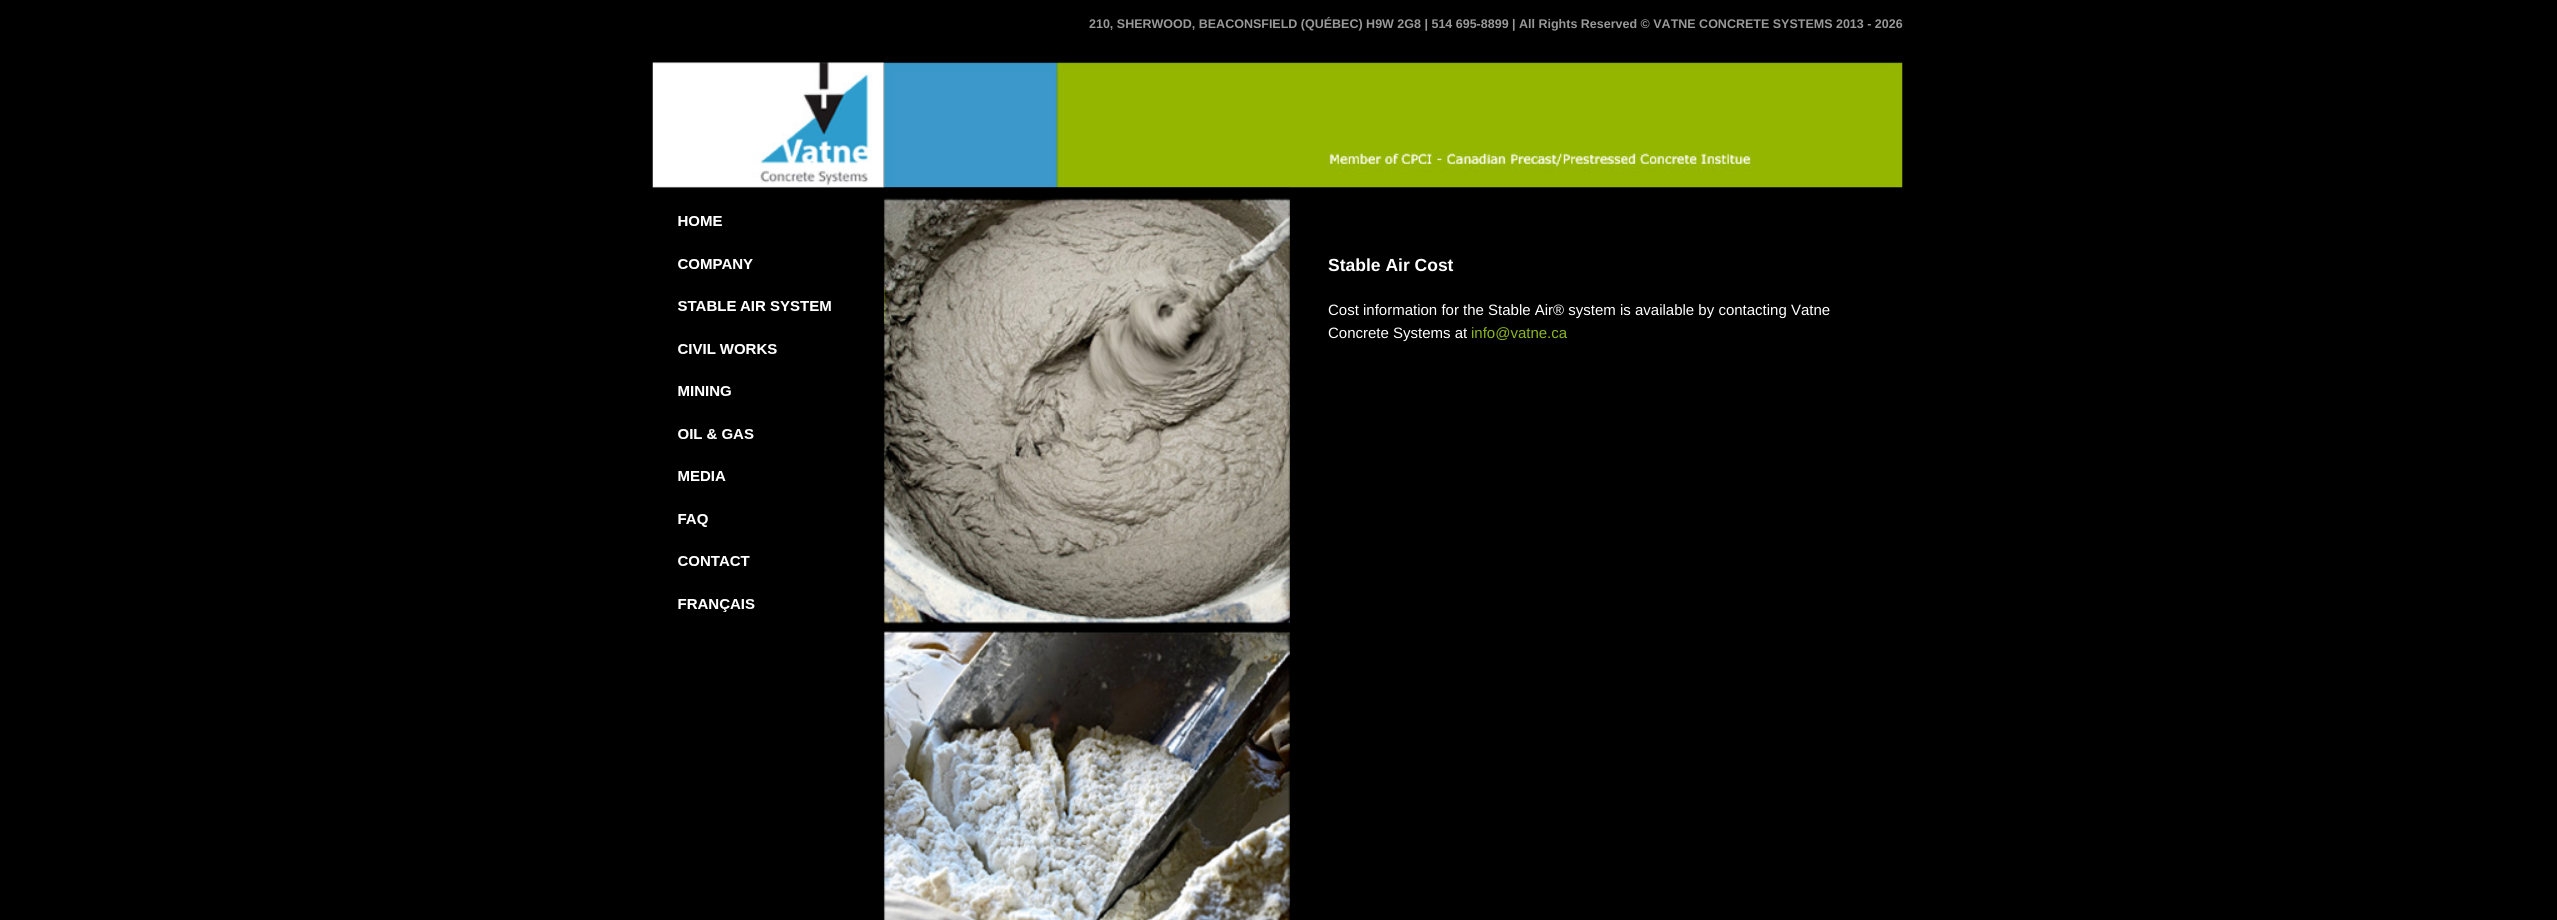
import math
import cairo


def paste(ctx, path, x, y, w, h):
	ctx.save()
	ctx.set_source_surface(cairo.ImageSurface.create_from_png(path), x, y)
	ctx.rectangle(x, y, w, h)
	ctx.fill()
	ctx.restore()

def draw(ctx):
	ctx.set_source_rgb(0, 0, 0)
	ctx.paint()
	ctx.select_font_face('Liberation Sans', cairo.FONT_SLANT_NORMAL, cairo.FONT_WEIGHT_BOLD)
	ctx.set_font_size(12.5)
	ctx.set_source_rgb(0.6, 0.6, 0.6)
	ctx.move_to(1089, 28)
	ctx.show_text('210, SHERWOOD, BEACONSFIELD (QUÉBEC) H9W 2G8 | 514 695-8899 | All Rights Reserved © VATNE CONCRETE SYSTEMS 2013 - 2026')
	paste(ctx, 'media/1.png', 652, 62, 232, 126)
	paste(ctx, 'media/2.png', 653, 187, 231, 425)
	paste(ctx, 'media/3.png', 883, 62, 1020, 126)
	paste(ctx, 'media/4.png', 883, 187, 407, 733)
	ctx.set_font_size(17.5)
	ctx.set_source_rgb(1, 1, 1)
	ctx.move_to(1328, 271)
	ctx.show_text('Stable Air Cost')
	ctx.select_font_face('Liberation Sans')
	ctx.set_font_size(15)
	ctx.move_to(1328, 315)
	ctx.show_text('Cost information for the Stable Air® system is available by contacting Vatne')
	ctx.move_to(1328, 338)
	ctx.show_text('Concrete Systems at')
	ctx.set_source_rgb(0.545, 0.714, 0.118)
	ctx.move_to(1471, 338)
	ctx.show_text('info@vatne.ca')


surface = cairo.ImageSurface(cairo.FORMAT_RGB24, 2557, 920)
ctx = cairo.Context(surface)
options = cairo.FontOptions()
options.set_hint_metrics(cairo.HINT_METRICS_OFF)
options.set_hint_style(cairo.HINT_STYLE_NONE)
ctx.set_font_options(options)
ctx.set_miter_limit(4)
draw(ctx)
surface.write_to_png('image.png')
